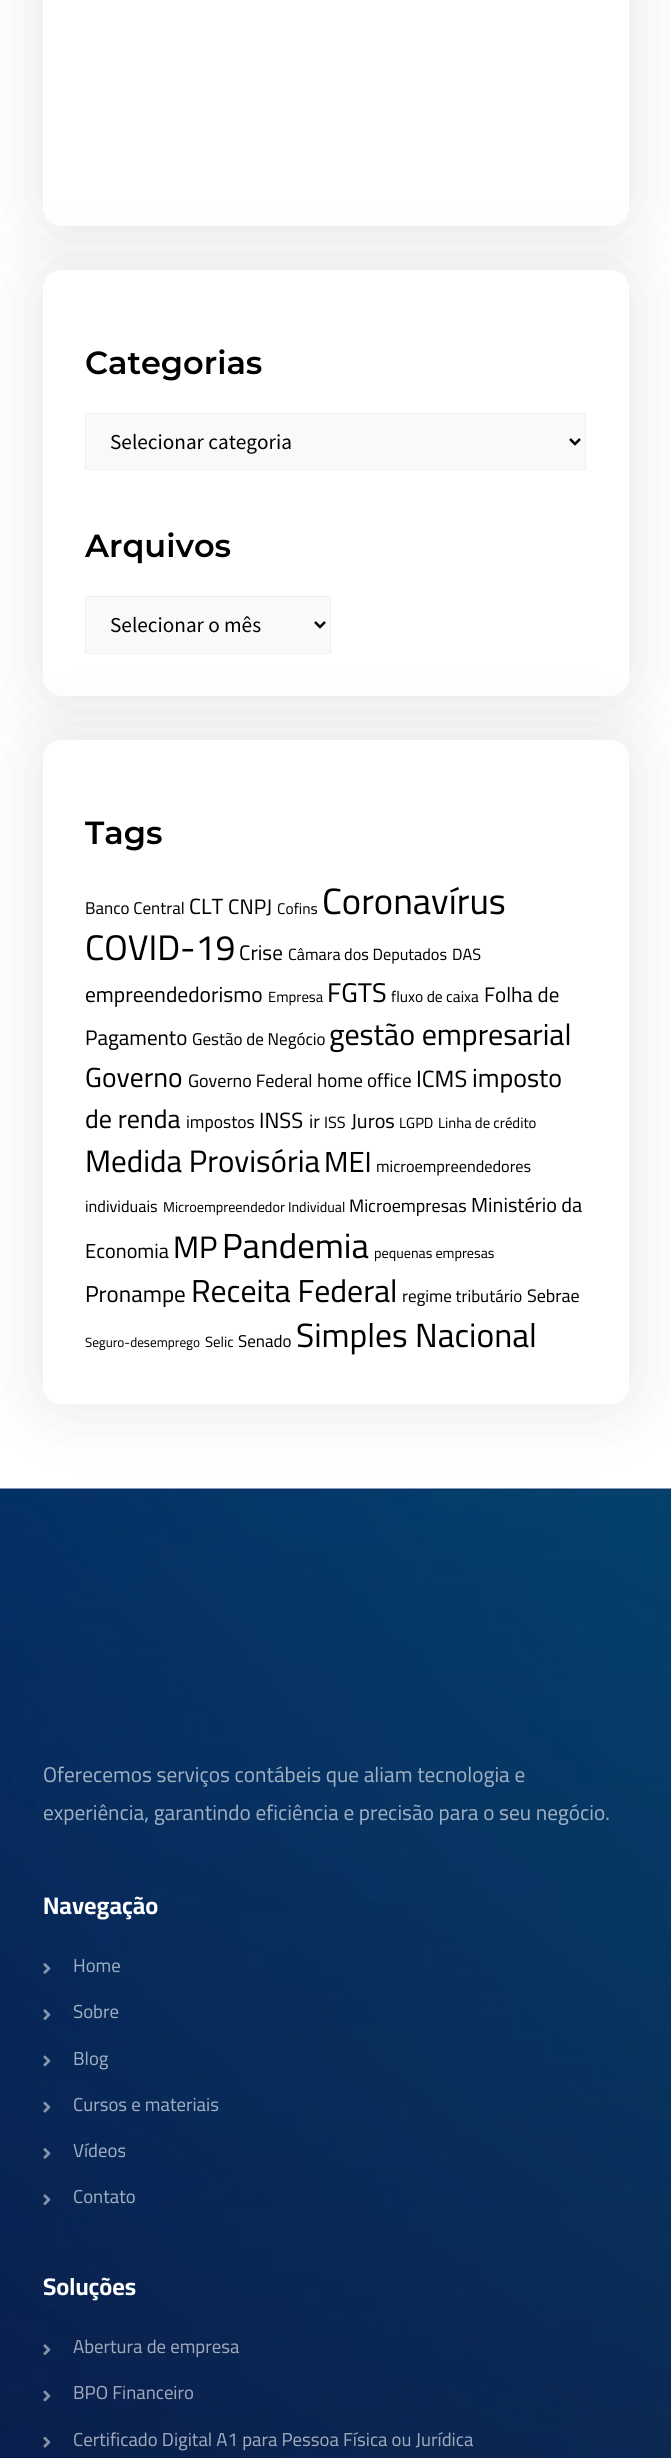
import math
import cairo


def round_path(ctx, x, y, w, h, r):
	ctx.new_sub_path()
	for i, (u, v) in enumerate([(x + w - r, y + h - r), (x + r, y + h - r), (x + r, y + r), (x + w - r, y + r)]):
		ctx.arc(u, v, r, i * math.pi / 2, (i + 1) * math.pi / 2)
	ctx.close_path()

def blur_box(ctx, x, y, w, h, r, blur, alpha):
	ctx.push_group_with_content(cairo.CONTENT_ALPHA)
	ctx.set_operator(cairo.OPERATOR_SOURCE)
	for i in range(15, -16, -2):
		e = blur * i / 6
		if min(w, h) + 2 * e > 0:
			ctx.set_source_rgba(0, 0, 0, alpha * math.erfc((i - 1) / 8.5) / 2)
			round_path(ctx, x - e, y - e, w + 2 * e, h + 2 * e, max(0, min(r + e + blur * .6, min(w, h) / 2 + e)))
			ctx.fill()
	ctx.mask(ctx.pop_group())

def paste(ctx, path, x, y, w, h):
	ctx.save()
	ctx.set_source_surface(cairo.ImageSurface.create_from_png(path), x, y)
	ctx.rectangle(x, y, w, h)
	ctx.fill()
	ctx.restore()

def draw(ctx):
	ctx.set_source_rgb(1, 1, 1)
	ctx.paint()
	ctx.set_source_rgb(0, 0, 0)
	blur_box(ctx, 43, -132, 586, 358, 19, 37.5, 0.1)
	ctx.set_source_rgb(1, 1, 1)
	round_path(ctx, 43, -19, 586, 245, 19)
	ctx.fill()
	ctx.set_source_rgb(0, 0, 0)
	blur_box(ctx, 43, 270, 586, 426, 19, 37.5, 0.1)
	ctx.set_source_rgb(1, 1, 1)
	round_path(ctx, 43, 270, 586, 426, 19)
	ctx.fill()
	ctx.select_font_face('Montserrat SemiBold')
	ctx.set_font_size(32)
	ctx.set_source_rgb(0, 0, 0)
	ctx.move_to(85, 374)
	ctx.show_text('Categorias')
	ctx.set_source_rgb(0.969, 0.973, 0.976)
	ctx.rectangle(85.5, 413.5, 500, 56)
	ctx.fill_preserve()
	ctx.set_source_rgb(0.941, 0.941, 0.941)
	ctx.set_line_width(1)
	ctx.stroke()
	ctx.new_path()
	ctx.move_to(570, 439)
	ctx.line_to(575, 444)
	ctx.line_to(580, 439)
	ctx.set_source_rgb(0, 0, 0)
	ctx.set_line_width(2.5)
	ctx.stroke()
	ctx.select_font_face('Source Sans Pro')
	ctx.set_font_size(21.25)
	ctx.move_to(110, 449)
	ctx.show_text('Selecionar categoria')
	ctx.select_font_face('Montserrat SemiBold')
	ctx.set_font_size(32)
	ctx.move_to(85, 557)
	ctx.show_text('Arquivos')
	ctx.set_source_rgb(0.969, 0.973, 0.976)
	ctx.rectangle(85.5, 596.5, 245, 57)
	ctx.fill_preserve()
	ctx.set_source_rgb(0.941, 0.941, 0.941)
	ctx.set_line_width(1)
	ctx.stroke()
	ctx.new_path()
	ctx.move_to(315, 622)
	ctx.line_to(320, 627)
	ctx.line_to(325, 622)
	ctx.set_source_rgb(0, 0, 0)
	ctx.set_line_width(2.5)
	ctx.stroke()
	ctx.select_font_face('Source Sans Pro')
	ctx.set_font_size(21.25)
	ctx.move_to(110, 632)
	ctx.show_text('Selecionar o mês')
	ctx.set_source_rgb(0, 0, 0)
	blur_box(ctx, 43, 740, 586, 664, 19, 37.5, 0.1)
	ctx.set_source_rgb(1, 1, 1)
	round_path(ctx, 43, 740, 586, 664, 19)
	ctx.fill()
	ctx.select_font_face('Montserrat SemiBold')
	ctx.set_font_size(32)
	ctx.set_source_rgb(0, 0, 0)
	ctx.move_to(85, 844)
	ctx.show_text('Tags')
	ctx.select_font_face('Cairo')
	ctx.set_font_size(17)
	ctx.move_to(85, 914)
	ctx.show_text('Banco Central')
	ctx.set_font_size(22)
	ctx.move_to(189, 914)
	ctx.show_text('CLT')
	ctx.set_font_size(21)
	ctx.move_to(228, 914)
	ctx.show_text('CNPJ')
	ctx.set_font_size(15.5)
	ctx.move_to(277, 914)
	ctx.show_text('Cofins')
	ctx.set_font_size(36.5)
	ctx.move_to(322, 914)
	ctx.show_text('Coronavírus')
	ctx.set_font_size(35.5)
	ctx.move_to(85, 960)
	ctx.show_text('COVID-19')
	ctx.set_font_size(21)
	ctx.move_to(239, 960)
	ctx.show_text('Crise')
	ctx.set_font_size(16.25)
	ctx.move_to(288, 960)
	ctx.show_text('Câmara dos Deputados')
	ctx.move_to(452, 960)
	ctx.show_text('DAS')
	ctx.set_font_size(21.5)
	ctx.move_to(85, 1002)
	ctx.show_text('empreendedorismo')
	ctx.set_font_size(14.75)
	ctx.move_to(268, 1002)
	ctx.show_text('Empresa')
	ctx.set_font_size(27)
	ctx.move_to(327, 1002)
	ctx.show_text('FGTS')
	ctx.set_font_size(15.5)
	ctx.move_to(391, 1002)
	ctx.show_text('fluxo de caixa')
	ctx.set_font_size(21)
	ctx.move_to(484, 1002)
	ctx.show_text('Folha de')
	ctx.move_to(85, 1045)
	ctx.show_text('Pagamento')
	ctx.set_font_size(17)
	ctx.move_to(192, 1045)
	ctx.show_text('Gestão de Negócio')
	ctx.set_font_size(30)
	ctx.move_to(329, 1045)
	ctx.show_text('gestão empresarial')
	ctx.set_font_size(27.5)
	ctx.move_to(85, 1087)
	ctx.show_text('Governo')
	ctx.set_font_size(18)
	ctx.move_to(188, 1087)
	ctx.show_text('Governo Federal')
	ctx.set_font_size(19)
	ctx.move_to(317, 1087)
	ctx.show_text('home office')
	ctx.set_font_size(23.5)
	ctx.move_to(416, 1087)
	ctx.show_text('ICMS')
	ctx.set_font_size(26)
	ctx.move_to(472, 1087)
	ctx.show_text('imposto')
	ctx.move_to(85, 1128)
	ctx.show_text('de renda')
	ctx.set_font_size(17.5)
	ctx.move_to(186, 1128)
	ctx.show_text('impostos')
	ctx.set_font_size(22)
	ctx.move_to(259, 1128)
	ctx.show_text('INSS')
	ctx.set_font_size(19)
	ctx.move_to(309, 1128)
	ctx.show_text('ir')
	ctx.set_font_size(16.25)
	ctx.move_to(324, 1128)
	ctx.show_text('ISS')
	ctx.set_font_size(20.25)
	ctx.move_to(351, 1128)
	ctx.show_text('Juros')
	ctx.set_font_size(14.75)
	ctx.move_to(399, 1128)
	ctx.show_text('LGPD')
	ctx.move_to(438, 1128)
	ctx.show_text('Linha de crédito')
	ctx.set_font_size(31)
	ctx.move_to(85, 1172)
	ctx.show_text('Medida Provisória')
	ctx.set_font_size(29)
	ctx.move_to(324, 1172)
	ctx.show_text('MEI')
	ctx.set_font_size(16.25)
	ctx.move_to(376, 1172)
	ctx.show_text('microempreendedores')
	ctx.move_to(85, 1212)
	ctx.show_text('individuais')
	ctx.set_font_size(14.2)
	ctx.move_to(163, 1212)
	ctx.show_text('Microempreendedor Individual')
	ctx.set_font_size(18)
	ctx.move_to(349, 1212)
	ctx.show_text('Microempresas')
	ctx.set_font_size(20.25)
	ctx.move_to(471, 1212)
	ctx.show_text('Ministério da')
	ctx.move_to(85, 1258)
	ctx.show_text('Economia')
	ctx.set_font_size(31)
	ctx.move_to(173, 1258)
	ctx.show_text('MP')
	ctx.set_font_size(34.75)
	ctx.move_to(222, 1258)
	ctx.show_text('Pandemia')
	ctx.set_font_size(14.2)
	ctx.move_to(374, 1258)
	ctx.show_text('pequenas empresas')
	ctx.set_font_size(23)
	ctx.move_to(85, 1302)
	ctx.show_text('Pronampe')
	ctx.set_font_size(31.75)
	ctx.move_to(191, 1302)
	ctx.show_text('Receita Federal')
	ctx.set_font_size(17)
	ctx.move_to(402, 1302)
	ctx.show_text('regime tributário')
	ctx.set_font_size(18)
	ctx.move_to(527, 1302)
	ctx.show_text('Sebrae')
	ctx.set_font_size(13.25)
	ctx.move_to(85, 1347)
	ctx.show_text('Seguro-desemprego')
	ctx.set_font_size(14.75)
	ctx.move_to(205, 1347)
	ctx.show_text('Selic')
	ctx.set_font_size(17)
	ctx.move_to(238, 1347)
	ctx.show_text('Senado')
	ctx.set_font_size(33.5)
	ctx.move_to(296, 1347)
	ctx.show_text('Simples Nacional')
	ctx.set_source_rgb(0.02, 0.071, 0.086)
	ctx.rectangle(0, 1489, 671, 969)
	ctx.fill()
	paste(ctx, 'media/1.png', 0, 1488, 671, 970)
	ctx.set_font_size(21.25)
	ctx.set_source_rgb(0.62, 0.686, 0.757)
	ctx.move_to(43, 1782)
	ctx.show_text('Oferecemos serviços contábeis que aliam tecnologia e')
	ctx.move_to(43, 1820)
	ctx.show_text('experiência, garantindo eficiência e precisão para o seu negócio.')
	ctx.select_font_face('Cairo', cairo.FONT_SLANT_NORMAL, cairo.FONT_WEIGHT_BOLD)
	ctx.set_font_size(24)
	ctx.set_source_rgb(1, 1, 1)
	ctx.move_to(43, 1914)
	ctx.show_text('Navegação')
	paste(ctx, 'media/2.png', 43, 1963, 8, 11)
	ctx.select_font_face('Cairo')
	ctx.set_font_size(18.75)
	ctx.set_source_rgb(0.62, 0.686, 0.757)
	ctx.move_to(73, 1972)
	ctx.show_text('Home')
	paste(ctx, 'media/3.png', 43, 2009, 8, 11)
	ctx.move_to(73, 2018)
	ctx.show_text('Sobre')
	paste(ctx, 'media/4.png', 43, 2055, 8, 12)
	ctx.move_to(73, 2065)
	ctx.show_text('Blog')
	paste(ctx, 'media/5.png', 43, 2101, 8, 12)
	ctx.move_to(73, 2111)
	ctx.show_text('Cursos e materiais')
	paste(ctx, 'media/6.png', 43, 2148, 8, 11)
	ctx.move_to(73, 2157)
	ctx.show_text('Vídeos')
	paste(ctx, 'media/7.png', 43, 2194, 8, 11)
	ctx.move_to(73, 2203)
	ctx.show_text('Contato')
	ctx.select_font_face('Cairo', cairo.FONT_SLANT_NORMAL, cairo.FONT_WEIGHT_BOLD)
	ctx.set_font_size(24)
	ctx.set_source_rgb(1, 1, 1)
	ctx.move_to(43, 2295)
	ctx.show_text('Soluções')
	paste(ctx, 'media/8.png', 43, 2344, 8, 11)
	ctx.select_font_face('Cairo')
	ctx.set_font_size(18.75)
	ctx.set_source_rgb(0.624, 0.663, 0.733)
	ctx.move_to(73, 2353)
	ctx.show_text('Abertura de empresa')
	paste(ctx, 'media/9.png', 43, 2390, 8, 12)
	ctx.move_to(73, 2399)
	ctx.show_text('BPO Financeiro')
	paste(ctx, 'media/10.png', 43, 2436, 8, 12)
	ctx.move_to(73, 2446)
	ctx.show_text('Certificado Digital A1 para Pessoa Física ou Jurídica')


surface = cairo.ImageSurface(cairo.FORMAT_RGB24, 671, 2458)
ctx = cairo.Context(surface)
options = cairo.FontOptions()
options.set_hint_metrics(cairo.HINT_METRICS_OFF)
options.set_hint_style(cairo.HINT_STYLE_NONE)
ctx.set_font_options(options)
ctx.set_miter_limit(4)
draw(ctx)
surface.write_to_png('image.png')
